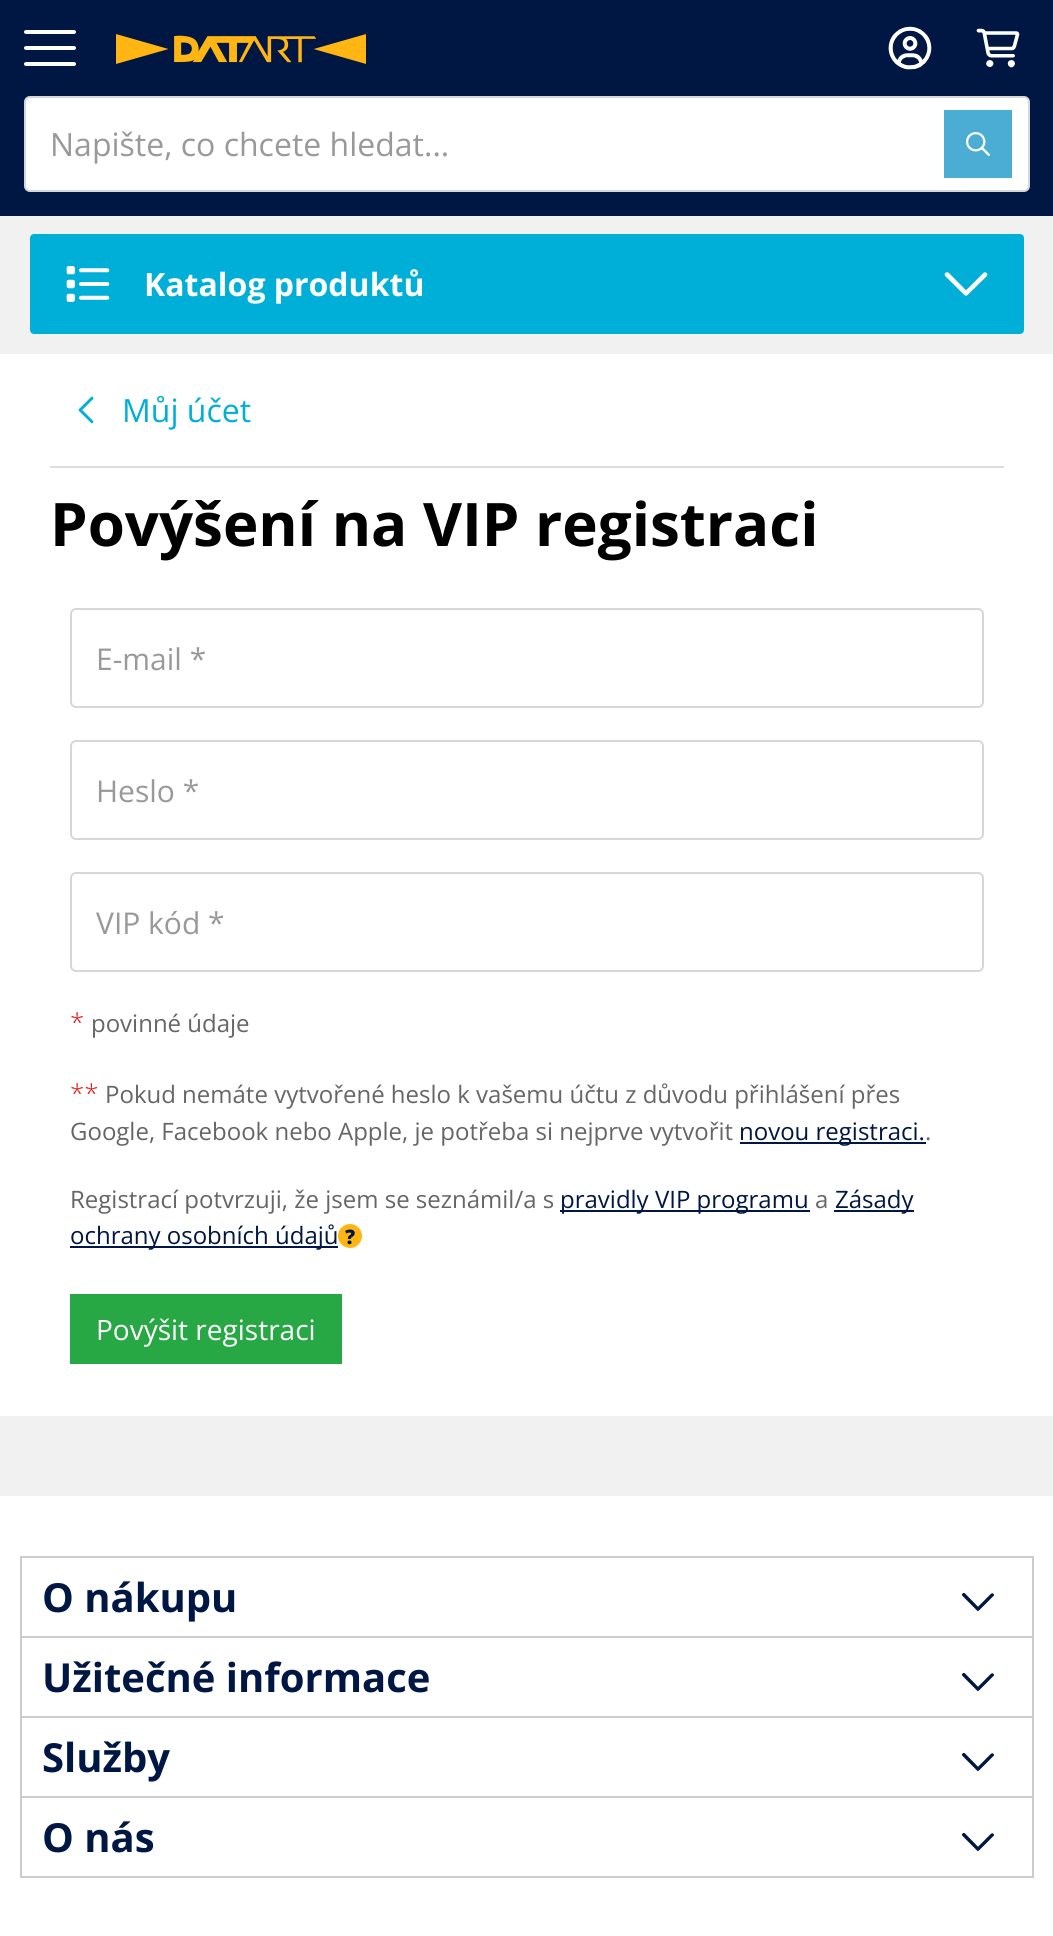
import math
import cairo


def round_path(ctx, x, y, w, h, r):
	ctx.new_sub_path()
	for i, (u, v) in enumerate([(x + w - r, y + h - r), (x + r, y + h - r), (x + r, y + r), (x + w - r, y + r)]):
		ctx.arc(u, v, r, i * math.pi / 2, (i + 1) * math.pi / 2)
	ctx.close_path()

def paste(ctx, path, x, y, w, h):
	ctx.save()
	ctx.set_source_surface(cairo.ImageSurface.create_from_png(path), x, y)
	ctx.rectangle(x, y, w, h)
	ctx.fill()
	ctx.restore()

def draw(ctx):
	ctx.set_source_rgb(0.945, 0.945, 0.945)
	ctx.paint()
	ctx.set_source_rgb(0, 0.09, 0.267)
	ctx.rectangle(0, 0, 1053, 216)
	ctx.fill()
	paste(ctx, 'media/1.png', 888, 26, 44, 44)
	paste(ctx, 'media/2.png', 976, 28, 44, 40)
	ctx.set_source_rgb(1, 1, 1)
	round_path(ctx, 24, 30, 52, 4, 2)
	ctx.fill()
	round_path(ctx, 24, 46, 52, 4, 2)
	ctx.fill()
	round_path(ctx, 24, 62, 52, 4, 2)
	ctx.fill()
	paste(ctx, 'media/3.png', 116, 34, 250, 30)
	round_path(ctx, 25, 97, 1004, 94, 5)
	ctx.fill_preserve()
	ctx.set_source_rgb(0.843, 0.843, 0.843)
	ctx.stroke()
	ctx.select_font_face('Open Sans')
	ctx.set_font_size(32)
	ctx.set_source_rgb(0.6, 0.6, 0.6)
	ctx.move_to(50, 156)
	ctx.show_text('Napište, co chcete hledat...')
	ctx.set_source_rgb(0.298, 0.678, 0.831)
	ctx.rectangle(944, 110, 68, 68)
	ctx.fill()
	paste(ctx, 'media/4.png', 966, 132, 24, 24)
	ctx.set_source_rgb(0, 0.686, 0.847)
	round_path(ctx, 31, 235, 992, 98, 3)
	ctx.fill_preserve()
	ctx.stroke()
	paste(ctx, 'media/5.png', 66, 266, 44, 36)
	ctx.select_font_face('Open Sans', cairo.FONT_SLANT_NORMAL, cairo.FONT_WEIGHT_BOLD)
	ctx.set_source_rgb(1, 1, 1)
	ctx.move_to(144, 296)
	ctx.show_text('Katalog produktů')
	paste(ctx, 'media/6.png', 944, 272, 44, 24)
	ctx.rectangle(0, 354, 1053, 1062)
	ctx.fill()
	ctx.set_source_rgb(0.867, 0.867, 0.867)
	ctx.rectangle(50, 466, 954, 2)
	ctx.fill()
	paste(ctx, 'media/7.png', 78, 396, 16, 28)
	ctx.select_font_face('Open Sans')
	ctx.set_source_rgb(0, 0.686, 0.847)
	ctx.move_to(122, 422)
	ctx.show_text('Můj účet')
	ctx.select_font_face('Open Sans', cairo.FONT_SLANT_NORMAL, cairo.FONT_WEIGHT_BOLD)
	ctx.set_font_size(60)
	ctx.set_source_rgb(0, 0, 0)
	ctx.move_to(50, 546)
	ctx.show_text('Povýšení na VIP registraci')
	round_path(ctx, 71, 609, 912, 98, 5)
	ctx.set_source_rgb(0.843, 0.843, 0.843)
	ctx.stroke()
	ctx.select_font_face('Open Sans')
	ctx.set_font_size(30)
	ctx.set_source_rgb(0.6, 0.6, 0.6)
	ctx.move_to(96, 670)
	ctx.show_text('E-mail *')
	round_path(ctx, 71, 741, 912, 98, 5)
	ctx.set_source_rgb(0.843, 0.843, 0.843)
	ctx.stroke()
	ctx.set_source_rgb(0.6, 0.6, 0.6)
	ctx.move_to(96, 802)
	ctx.show_text('Heslo *')
	round_path(ctx, 71, 873, 912, 98, 5)
	ctx.set_source_rgb(0.843, 0.843, 0.843)
	ctx.stroke()
	ctx.set_source_rgb(0.6, 0.6, 0.6)
	ctx.move_to(96, 934)
	ctx.show_text('VIP kód *')
	ctx.select_font_face('Open Sans Light')
	ctx.set_font_size(26)
	ctx.set_source_rgb(0.918, 0.047, 0.047)
	ctx.move_to(70, 1032)
	ctx.show_text('*')
	ctx.select_font_face('Open Sans')
	ctx.set_font_size(24)
	ctx.set_source_rgb(0.4, 0.4, 0.4)
	ctx.move_to(91, 1032)
	ctx.show_text('povinné údaje')
	ctx.select_font_face('Open Sans Light')
	ctx.set_font_size(26)
	ctx.set_source_rgb(0.918, 0.047, 0.047)
	ctx.move_to(70, 1103)
	ctx.show_text('**')
	ctx.select_font_face('Open Sans')
	ctx.set_font_size(24)
	ctx.set_source_rgb(0.4, 0.4, 0.4)
	ctx.move_to(105, 1103)
	ctx.show_text('Pokud nemáte vytvořené heslo k vašemu účtu z důvodu přihlášení přes')
	ctx.move_to(70, 1140)
	ctx.show_text('Google, Facebook nebo Apple, je potřeba si nejprve vytvořit')
	ctx.set_source_rgb(0, 0.09, 0.267)
	ctx.rectangle(740, 1142, 186, 2)
	ctx.fill()
	ctx.move_to(739, 1140)
	ctx.show_text('novou registraci.')
	ctx.set_source_rgb(0.4, 0.4, 0.4)
	ctx.move_to(925, 1140)
	ctx.show_text('.')
	ctx.move_to(70, 1208)
	ctx.show_text('Registrací potvrzuji, že jsem se seznámil/a s')
	ctx.set_source_rgb(0, 0.09, 0.267)
	ctx.rectangle(560, 1210, 250, 2)
	ctx.fill()
	ctx.move_to(560, 1208)
	ctx.show_text('pravidly VIP programu')
	ctx.set_source_rgb(0.4, 0.4, 0.4)
	ctx.move_to(815, 1208)
	ctx.show_text('a')
	ctx.set_source_rgb(0, 0.09, 0.267)
	ctx.rectangle(834, 1210, 80, 2)
	ctx.fill()
	ctx.move_to(835, 1208)
	ctx.show_text('Zásady')
	ctx.rectangle(70, 1246, 268, 2)
	ctx.fill()
	ctx.move_to(70, 1244)
	ctx.show_text('ochrany osobních údajů')
	ctx.set_source_rgb(1, 0.714, 0.071)
	ctx.new_path()
	ctx.arc(350, 1236, 12, 0, 2 * math.pi)
	ctx.fill()
	ctx.select_font_face('Open Sans ExtraBold')
	ctx.set_font_size(20)
	ctx.set_source_rgb(0, 0.09, 0.267)
	ctx.move_to(345, 1244)
	ctx.show_text('?')
	ctx.set_source_rgb(0.157, 0.655, 0.271)
	ctx.rectangle(70, 1294, 272, 70)
	ctx.fill()
	ctx.select_font_face('Open Sans')
	ctx.set_font_size(28)
	ctx.set_source_rgb(1, 1, 1)
	ctx.move_to(96, 1340)
	ctx.show_text('Povýšit registraci')
	ctx.rectangle(0, 1496, 1053, 440)
	ctx.fill()
	ctx.set_source_rgb(0.8, 0.8, 0.8)
	ctx.rectangle(20, 1556, 1014, 2)
	ctx.rectangle(1032, 1556, 2, 80)
	ctx.rectangle(20, 1556, 2, 80)
	ctx.fill()
	ctx.select_font_face('Open Sans', cairo.FONT_SLANT_NORMAL, cairo.FONT_WEIGHT_BOLD)
	ctx.set_font_size(40)
	ctx.set_source_rgb(0, 0.09, 0.267)
	ctx.move_to(42, 1612)
	ctx.show_text('O nákupu')
	paste(ctx, 'media/8.png', 962, 1593, 32, 18)
	ctx.set_source_rgb(0.8, 0.8, 0.8)
	ctx.rectangle(20, 1636, 1014, 2)
	ctx.rectangle(1032, 1636, 2, 80)
	ctx.rectangle(20, 1636, 2, 80)
	ctx.fill()
	ctx.set_source_rgb(0, 0.09, 0.267)
	ctx.move_to(42, 1692)
	ctx.show_text('Užitečné informace')
	paste(ctx, 'media/8.png', 962, 1673, 32, 18)
	ctx.set_source_rgb(0.8, 0.8, 0.8)
	ctx.rectangle(20, 1716, 1014, 2)
	ctx.rectangle(1032, 1716, 2, 80)
	ctx.rectangle(20, 1716, 2, 80)
	ctx.fill()
	ctx.set_source_rgb(0, 0.09, 0.267)
	ctx.move_to(42, 1772)
	ctx.show_text('Služby')
	paste(ctx, 'media/8.png', 962, 1753, 32, 18)
	ctx.set_source_rgb(0.8, 0.8, 0.8)
	ctx.rectangle(20, 1876, 1014, 2)
	ctx.rectangle(20, 1796, 1014, 2)
	ctx.rectangle(1032, 1796, 2, 80)
	ctx.rectangle(20, 1796, 2, 80)
	ctx.fill()
	ctx.set_source_rgb(0, 0.09, 0.267)
	ctx.move_to(42, 1852)
	ctx.show_text('O nás')
	paste(ctx, 'media/8.png', 962, 1833, 32, 18)


surface = cairo.ImageSurface(cairo.FORMAT_RGB24, 1053, 1936)
ctx = cairo.Context(surface)
options = cairo.FontOptions()
options.set_hint_metrics(cairo.HINT_METRICS_OFF)
options.set_hint_style(cairo.HINT_STYLE_NONE)
ctx.set_font_options(options)
ctx.set_miter_limit(4)
draw(ctx)
surface.write_to_png('image.png')
